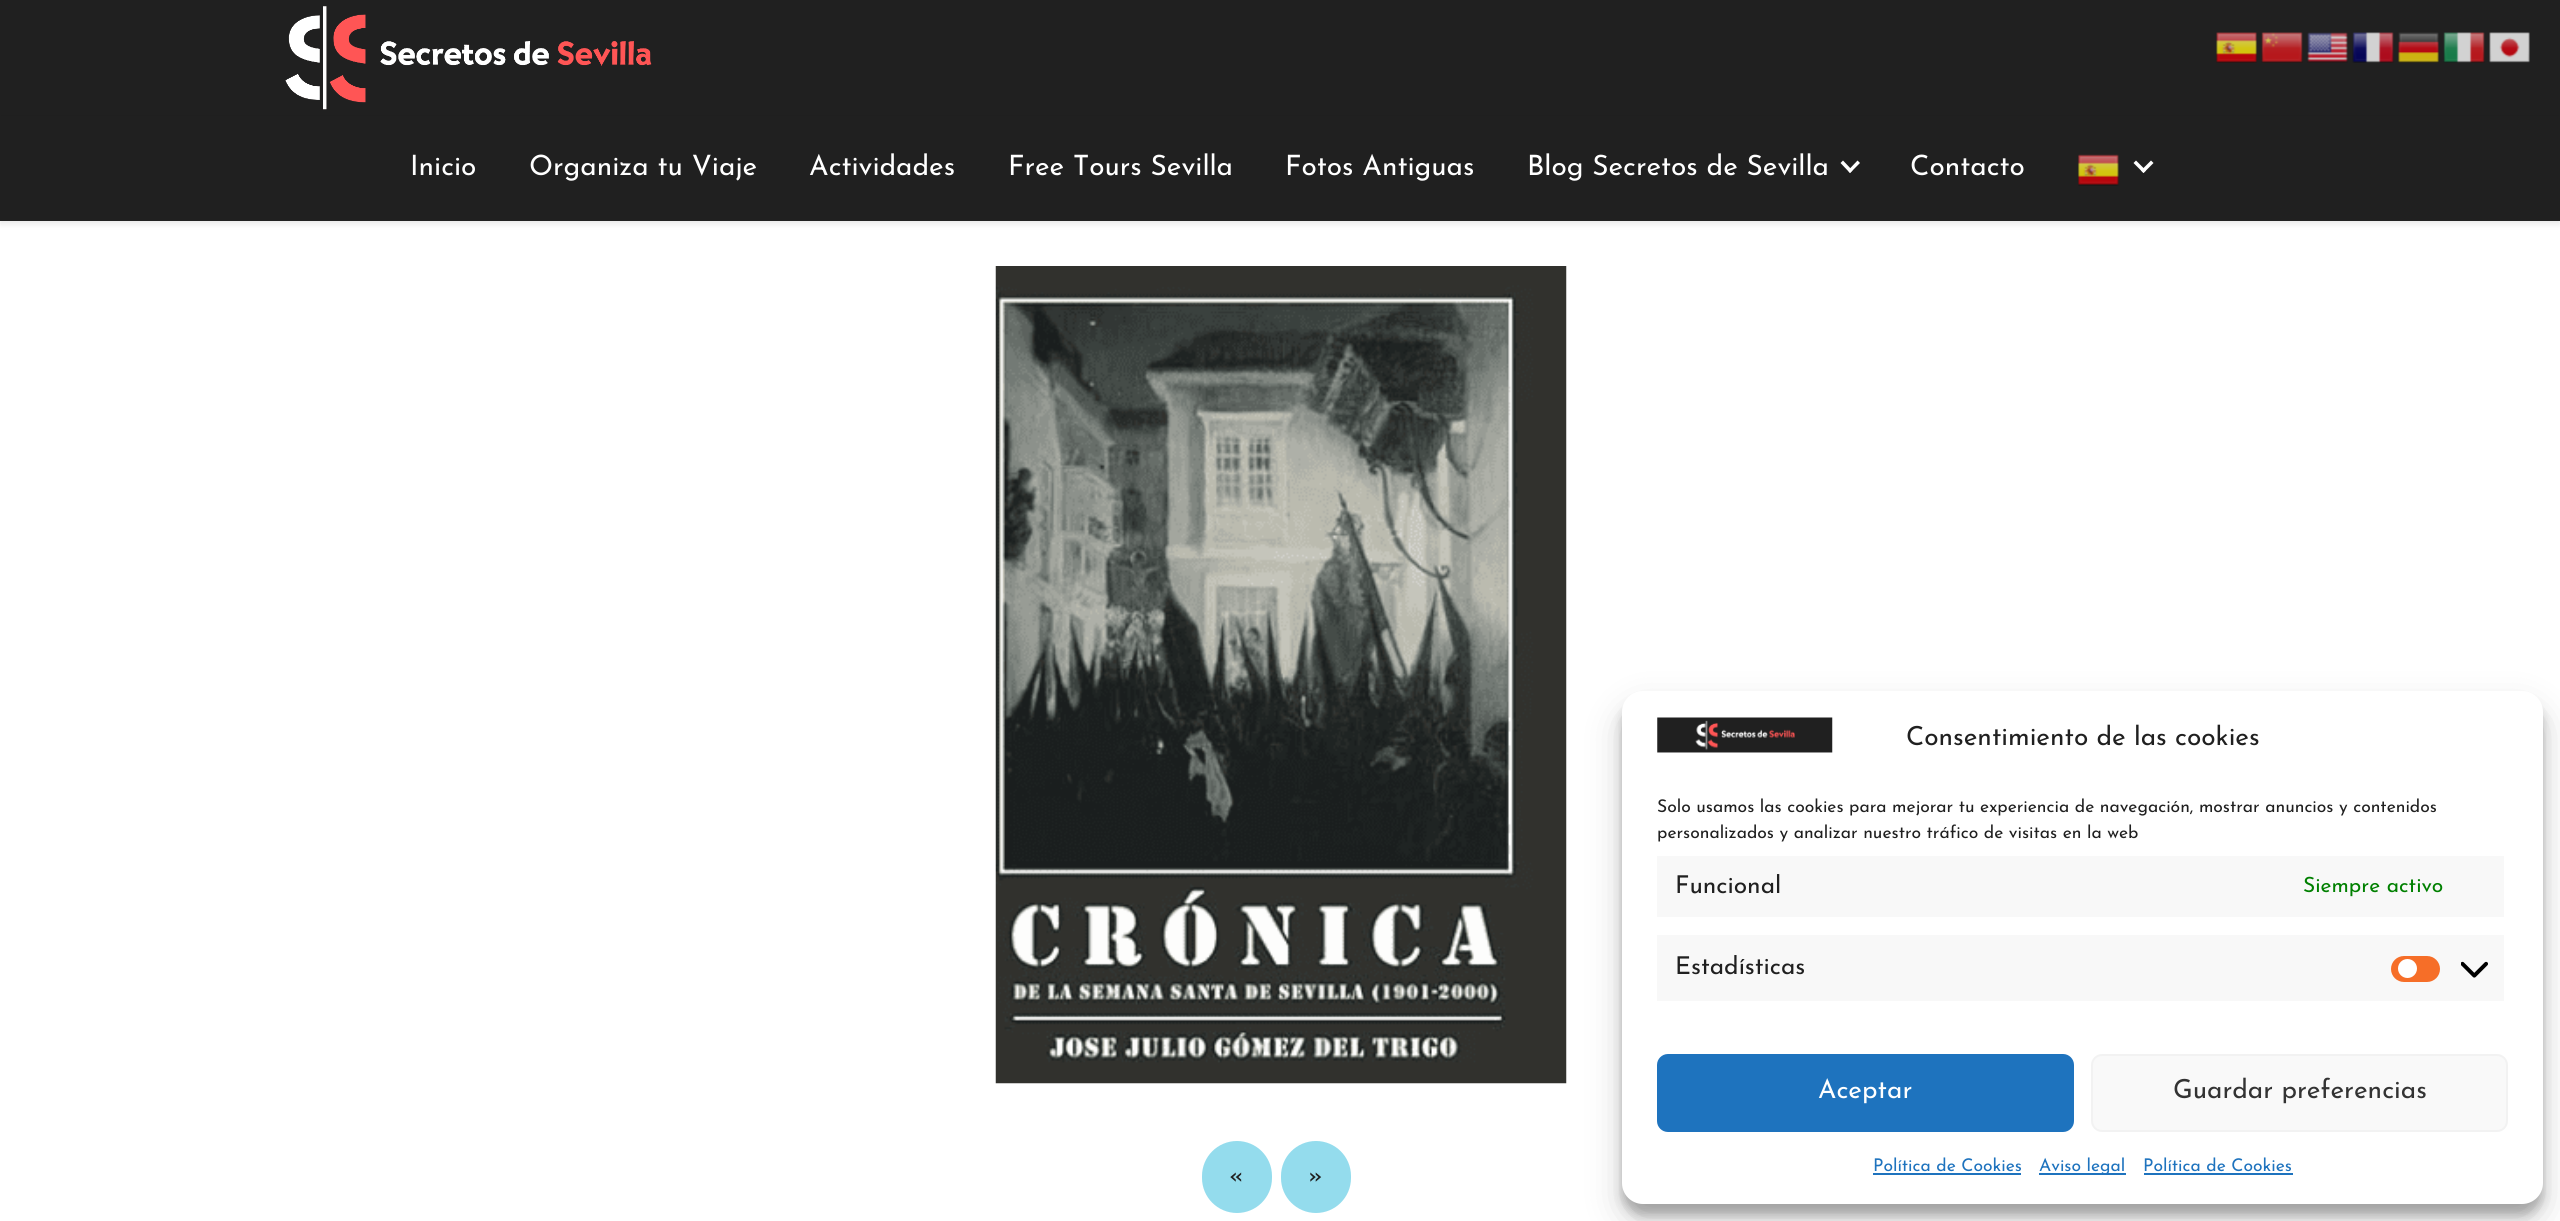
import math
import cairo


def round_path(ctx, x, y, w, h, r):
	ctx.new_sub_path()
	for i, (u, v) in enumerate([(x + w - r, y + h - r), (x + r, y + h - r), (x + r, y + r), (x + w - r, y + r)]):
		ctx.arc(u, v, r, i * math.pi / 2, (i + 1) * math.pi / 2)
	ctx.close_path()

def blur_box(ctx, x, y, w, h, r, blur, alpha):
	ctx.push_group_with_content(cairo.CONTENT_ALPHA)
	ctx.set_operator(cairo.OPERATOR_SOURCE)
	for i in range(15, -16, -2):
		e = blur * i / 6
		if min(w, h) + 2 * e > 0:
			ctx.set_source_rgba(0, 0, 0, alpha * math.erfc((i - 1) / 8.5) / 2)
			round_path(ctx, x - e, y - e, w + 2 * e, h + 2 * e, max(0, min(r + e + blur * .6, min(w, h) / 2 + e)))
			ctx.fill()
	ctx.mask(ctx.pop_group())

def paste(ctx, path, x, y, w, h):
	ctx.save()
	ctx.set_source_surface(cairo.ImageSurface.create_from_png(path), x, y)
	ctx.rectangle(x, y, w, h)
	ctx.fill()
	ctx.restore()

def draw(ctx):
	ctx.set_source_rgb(1, 1, 1)
	ctx.paint()
	ctx.set_source_rgb(0.125, 0.125, 0.125)
	ctx.rectangle(0, 0, 2560, 116)
	ctx.fill()
	paste(ctx, 'media/1.png', 285, 6, 367, 104)
	paste(ctx, 'media/2.png', 2216, 32, 41, 31)
	paste(ctx, 'media/3.png', 2261, 32, 42, 31)
	paste(ctx, 'media/4.png', 2307, 32, 41, 31)
	paste(ctx, 'media/5.png', 2352, 32, 42, 31)
	paste(ctx, 'media/6.png', 2398, 32, 41, 31)
	paste(ctx, 'media/7.png', 2443, 32, 42, 31)
	paste(ctx, 'media/8.png', 2489, 32, 41, 31)
	ctx.set_source_rgb(0, 0, 0)
	blur_box(ctx, 0, 119, 2560, 105, 0, 3.5, 0.1)
	ctx.set_source_rgb(0.125, 0.125, 0.125)
	ctx.rectangle(0, 116, 2560, 105)
	ctx.fill()
	ctx.select_font_face('Josefin Sans Thin')
	ctx.set_font_size(28)
	ctx.set_source_rgb(1, 1, 1)
	for x, y, s in [
		(410, 175, 'Inicio'),
		(529, 175, 'Organiza tu Viaje'),
		(809, 175, 'Actividades'),
		(1008, 175, 'Free Tours Sevilla'),
		(1285, 175, 'Fotos Antiguas'),
		(1527, 175, 'Blog Secretos de Sevilla'),
	]:
		ctx.move_to(x, y)
		ctx.show_text(s)
	ctx.new_path()
	ctx.move_to(1857.5, 160.5)
	ctx.line_to(1860, 163)
	ctx.line_to(1850, 173)
	ctx.line_to(1848, 170.5)
	ctx.close_path()
	ctx.fill()
	ctx.new_path()
	ctx.move_to(1843, 160.5)
	ctx.line_to(1852.5, 170.5)
	ctx.line_to(1850, 173)
	ctx.line_to(1840.5, 163)
	ctx.close_path()
	ctx.fill()
	ctx.move_to(1910, 175)
	ctx.show_text('Contacto')
	paste(ctx, 'media/9.png', 2078, 154, 41, 32)
	ctx.new_path()
	ctx.move_to(2151, 160.5)
	ctx.line_to(2153.5, 163)
	ctx.line_to(2143.5, 173)
	ctx.line_to(2141, 170.5)
	ctx.close_path()
	ctx.fill()
	ctx.new_path()
	ctx.move_to(2136, 160.5)
	ctx.line_to(2146, 170.5)
	ctx.line_to(2143.5, 173)
	ctx.line_to(2133.5, 163)
	ctx.close_path()
	ctx.fill()
	ctx.set_source_rgb(0, 0, 0)
	blur_box(ctx, 1622, 702, 921, 513, 21, 5, 0.23)
	blur_box(ctx, 1622, 709, 921, 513, 21, 17.5, 0.19)
	ctx.set_source_rgb(1, 1, 1)
	round_path(ctx, 1622, 691, 921, 513, 21)
	ctx.fill()
	paste(ctx, 'media/10.png', 1657, 717, 176, 36)
	ctx.set_font_size(26.25)
	ctx.set_source_rgb(0.125, 0.125, 0.125)
	ctx.move_to(1906, 745)
	ctx.show_text('Consentimiento de las cookies')
	ctx.set_font_size(17.5)
	ctx.move_to(1657, 812)
	ctx.show_text('Solo usamos las cookies para mejorar tu experiencia de navegación, mostrar anuncios y contenidos')
	ctx.move_to(1657, 838)
	ctx.show_text('personalizados y analizar nuestro tráfico de visitas en la web')
	ctx.set_source_rgb(0.969, 0.969, 0.969)
	ctx.rectangle(1657, 856, 847, 61)
	ctx.fill()
	ctx.set_font_size(24.5)
	ctx.set_source_rgb(0.125, 0.125, 0.125)
	ctx.move_to(1675, 893)
	ctx.show_text('Funcional')
	ctx.set_font_size(21)
	ctx.set_source_rgb(0, 0.502, 0)
	ctx.move_to(2303, 892)
	ctx.show_text('Siempre activo')
	ctx.set_source_rgb(0.969, 0.969, 0.969)
	ctx.rectangle(1657, 935, 847, 66)
	ctx.fill()
	ctx.set_font_size(24.5)
	ctx.set_source_rgb(0.125, 0.125, 0.125)
	ctx.move_to(1675, 974)
	ctx.show_text('Estadísticas')
	ctx.set_source_rgb(0.961, 0.431, 0.157)
	round_path(ctx, 2391, 956, 49, 26, 13)
	ctx.fill()
	ctx.set_source_rgb(1, 1, 1)
	ctx.arc(2407.5, 968.5, 9.5, 0, 2 * math.pi)
	ctx.fill()
	paste(ctx, 'media/11.png', 2461, 961, 27, 17)
	ctx.set_source_rgb(0.118, 0.451, 0.745)
	round_path(ctx, 1658, 1055, 415, 76, 10)
	ctx.fill_preserve()
	ctx.stroke()
	ctx.set_font_size(26.25)
	ctx.set_source_rgb(1, 1, 1)
	ctx.move_to(1818, 1098)
	ctx.show_text('Aceptar')
	ctx.set_source_rgb(0.976, 0.976, 0.976)
	round_path(ctx, 2092, 1055, 415, 76, 10)
	ctx.fill_preserve()
	ctx.set_source_rgb(0.949, 0.949, 0.949)
	ctx.stroke()
	ctx.set_source_rgb(0.2, 0.2, 0.2)
	ctx.move_to(2173, 1098)
	ctx.show_text('Guardar preferencias')
	ctx.set_font_size(17.5)
	ctx.set_source_rgb(0.118, 0.451, 0.745)
	ctx.move_to(1873, 1171)
	ctx.show_text('Política de Cookies')
	ctx.rectangle(1873, 1173, 148, 2)
	ctx.fill()
	ctx.rectangle(2039, 1173, 87, 2)
	ctx.fill()
	ctx.move_to(2039, 1171)
	ctx.show_text('Aviso legal')
	ctx.move_to(2143, 1171)
	ctx.show_text('Política de Cookies')
	ctx.rectangle(2144, 1173, 149, 2)
	ctx.fill()
	paste(ctx, 'media/12.png', 995, 266, 572, 818)
	ctx.set_source_rgb(0.58, 0.863, 0.929)
	round_path(ctx, 1202, 1141, 70, 72, 35)
	ctx.fill()
	ctx.set_font_size(24.5)
	ctx.set_source_rgb(0.125, 0.125, 0.125)
	ctx.move_to(1229, 1183)
	ctx.show_text('«')
	ctx.set_source_rgb(0.58, 0.863, 0.929)
	round_path(ctx, 1281, 1141, 70, 72, 35)
	ctx.fill()
	ctx.set_source_rgb(0.125, 0.125, 0.125)
	ctx.move_to(1308, 1183)
	ctx.show_text('»')


surface = cairo.ImageSurface(cairo.FORMAT_RGB24, 2560, 1221)
ctx = cairo.Context(surface)
options = cairo.FontOptions()
options.set_hint_metrics(cairo.HINT_METRICS_OFF)
options.set_hint_style(cairo.HINT_STYLE_NONE)
ctx.set_font_options(options)
ctx.set_miter_limit(4)
draw(ctx)
surface.write_to_png('image.png')
